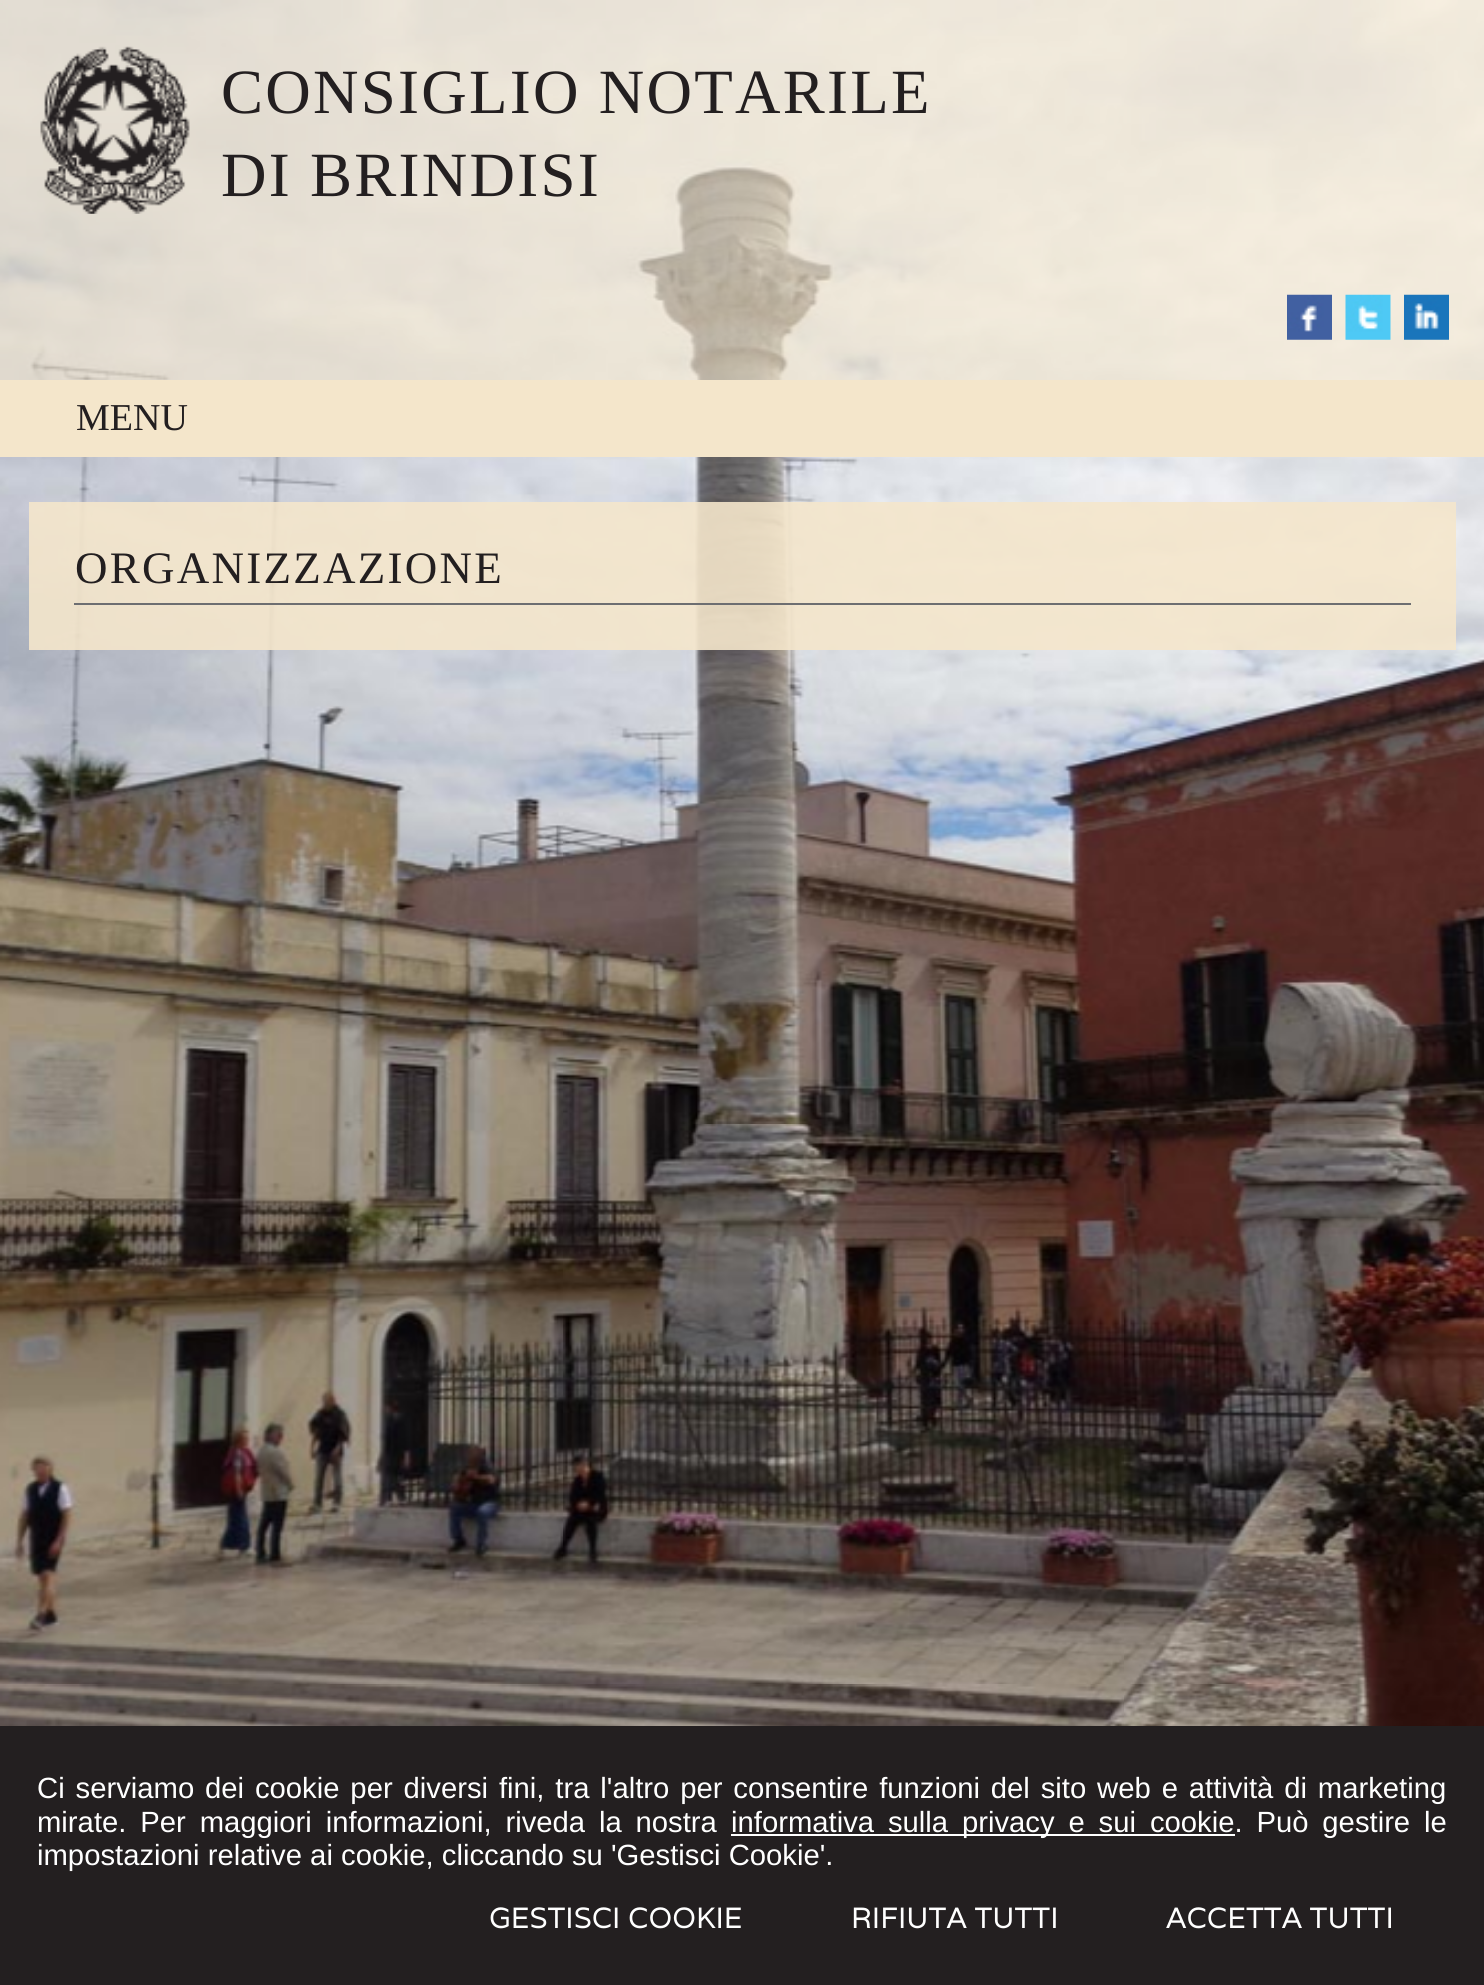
import math
import cairo


def write_spaced(ctx, x, y, s, letter, word):
	ctx.move_to(x, y)
	for ch in s:
		ctx.show_text(ch)
		ctx.rel_move_to(letter + word * (ch == ' '), 0)

def paste(ctx, path, x, y, w, h):
	ctx.save()
	ctx.set_source_surface(cairo.ImageSurface.create_from_png(path), x, y)
	ctx.rectangle(x, y, w, h)
	ctx.fill()
	ctx.restore()

def draw(ctx):
	ctx.set_source_rgb(1, 1, 1)
	ctx.paint()
	paste(ctx, 'media/1.png', 0, 0, 1484, 1726)
	ctx.set_source_rgba(0.957, 0.902, 0.796, 0.6)
	ctx.rectangle(0, 0, 1484, 380)
	ctx.fill()
	paste(ctx, 'media/2.png', 40, 46, 150, 168)
	ctx.select_font_face('Liberation Serif')
	ctx.set_font_size(63)
	ctx.set_source_rgb(0.137, 0.122, 0.125)
	write_spaced(ctx, 221, 113, 'CONSIGLIO NOTARILE', 2.25, 0)
	write_spaced(ctx, 221, 196, 'DI BRINDISI', 2.25, 0)
	paste(ctx, 'media/3.png', 1287, 294, 45, 46)
	paste(ctx, 'media/4.png', 1345, 294, 46, 46)
	paste(ctx, 'media/5.png', 1404, 294, 45, 46)
	ctx.set_source_rgb(0.957, 0.902, 0.796)
	ctx.rectangle(0, 380, 1484, 77)
	ctx.fill()
	ctx.set_font_size(38)
	ctx.set_source_rgb(0.137, 0.122, 0.125)
	ctx.move_to(76, 430)
	ctx.show_text('MENU')
	ctx.set_source_rgba(0.957, 0.902, 0.796, 0.89)
	ctx.rectangle(29, 502, 1427, 148)
	ctx.fill()
	ctx.set_source_rgb(0.427, 0.431, 0.443)
	ctx.rectangle(74, 603, 1337, 2)
	ctx.fill()
	ctx.set_font_size(45)
	ctx.set_source_rgb(0.137, 0.122, 0.125)
	write_spaced(ctx, 75, 583, 'ORGANIZZAZIONE', 2.25, 0)
	ctx.rectangle(0, 1726, 1484, 259)
	ctx.fill()
	ctx.select_font_face('Liberation Sans')
	ctx.set_font_size(29.25)
	ctx.set_source_rgb(1, 1, 1)
	write_spaced(ctx, 37, 1798, 'Ci serviamo dei cookie per diversi fini, tra l\'altro per consentire funzioni del sito web e attività di marketing', 0, 2.75)
	write_spaced(ctx, 37, 1832, 'mirate. Per maggiori informazioni, riveda la nostra', 0, 5.75)
	ctx.rectangle(731, 1834, 504, 2)
	ctx.fill()
	write_spaced(ctx, 731, 1832, 'informativa sulla privacy e sui cookie. Può gestire le', 0, 5.75)
	ctx.move_to(37, 1865)
	ctx.show_text('impostazioni relative ai cookie, cliccando su \'Gestisci Cookie\'.')
	ctx.select_font_face('Varela')
	for x, y, s in [
		(489, 1928, 'GESTISCI COOKIE'),
		(851, 1928, 'RIFIUTA TUTTI'),
		(1166, 1928, 'ACCETTA TUTTI'),
	]:
		ctx.move_to(x, y)
		ctx.show_text(s)


surface = cairo.ImageSurface(cairo.FORMAT_RGB24, 1484, 1985)
ctx = cairo.Context(surface)
options = cairo.FontOptions()
options.set_hint_metrics(cairo.HINT_METRICS_OFF)
options.set_hint_style(cairo.HINT_STYLE_NONE)
ctx.set_font_options(options)
ctx.set_miter_limit(4)
draw(ctx)
surface.write_to_png('image.png')
